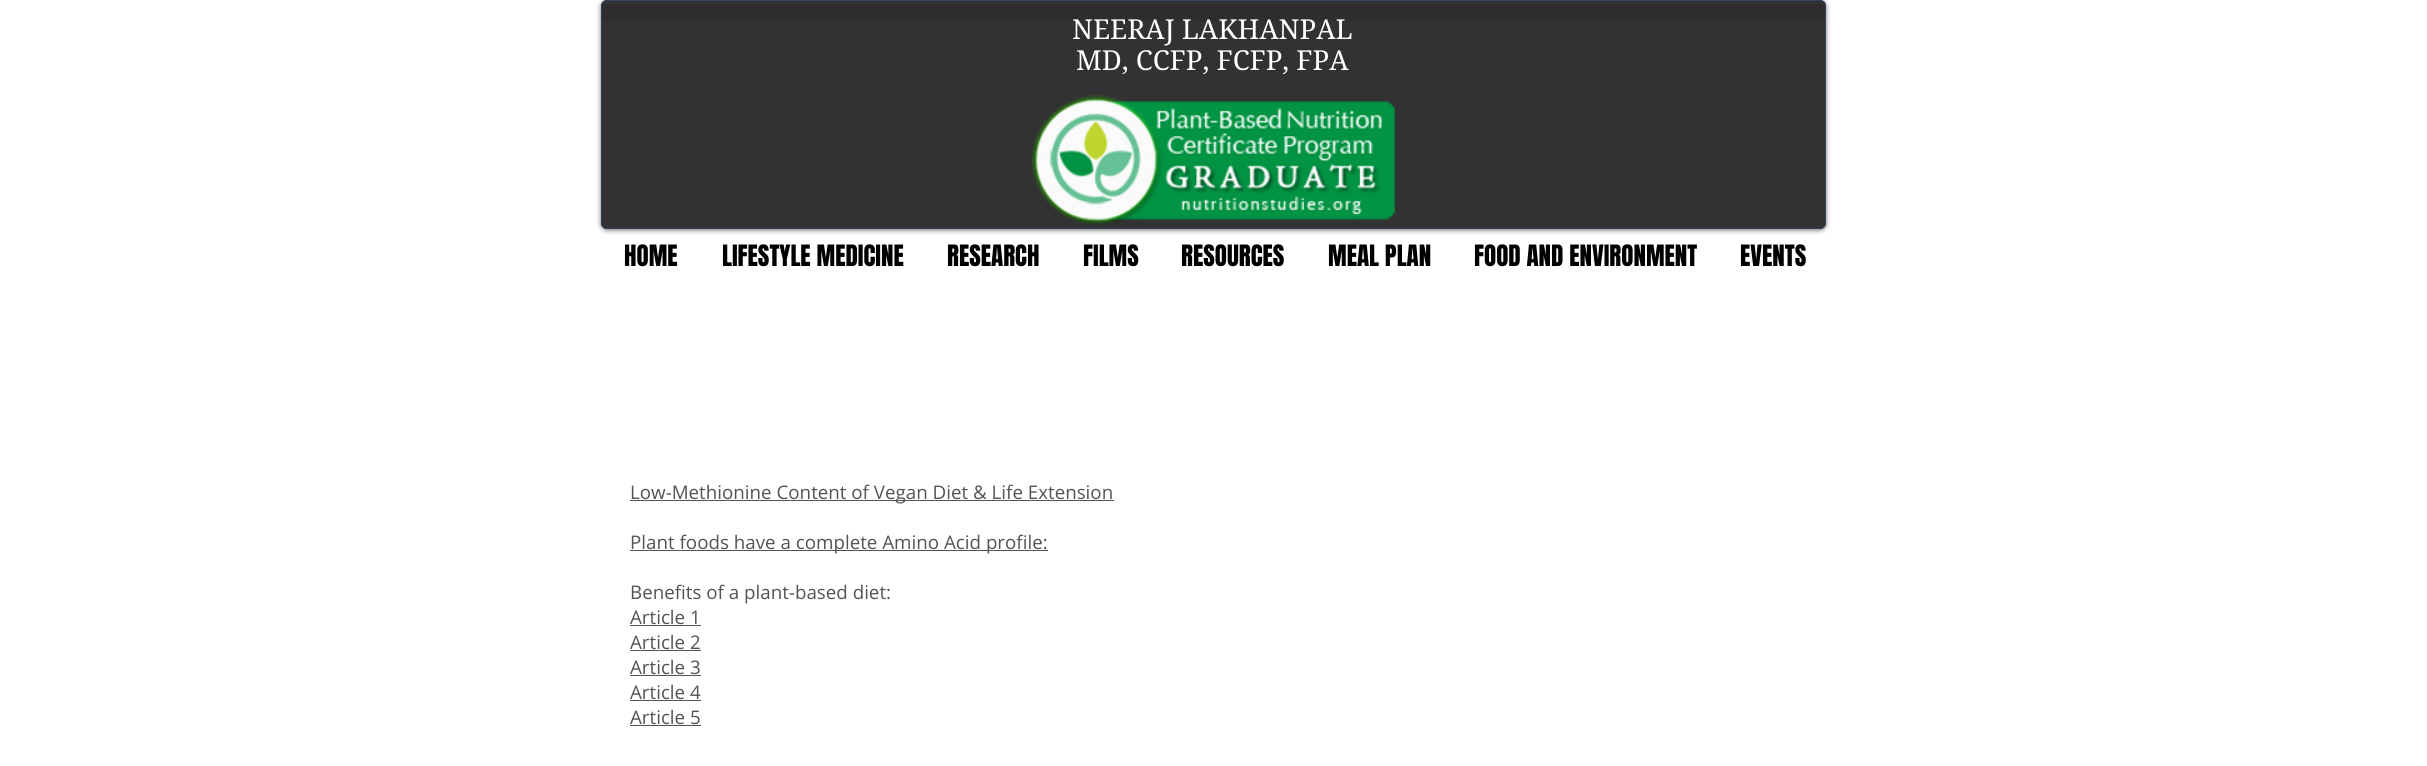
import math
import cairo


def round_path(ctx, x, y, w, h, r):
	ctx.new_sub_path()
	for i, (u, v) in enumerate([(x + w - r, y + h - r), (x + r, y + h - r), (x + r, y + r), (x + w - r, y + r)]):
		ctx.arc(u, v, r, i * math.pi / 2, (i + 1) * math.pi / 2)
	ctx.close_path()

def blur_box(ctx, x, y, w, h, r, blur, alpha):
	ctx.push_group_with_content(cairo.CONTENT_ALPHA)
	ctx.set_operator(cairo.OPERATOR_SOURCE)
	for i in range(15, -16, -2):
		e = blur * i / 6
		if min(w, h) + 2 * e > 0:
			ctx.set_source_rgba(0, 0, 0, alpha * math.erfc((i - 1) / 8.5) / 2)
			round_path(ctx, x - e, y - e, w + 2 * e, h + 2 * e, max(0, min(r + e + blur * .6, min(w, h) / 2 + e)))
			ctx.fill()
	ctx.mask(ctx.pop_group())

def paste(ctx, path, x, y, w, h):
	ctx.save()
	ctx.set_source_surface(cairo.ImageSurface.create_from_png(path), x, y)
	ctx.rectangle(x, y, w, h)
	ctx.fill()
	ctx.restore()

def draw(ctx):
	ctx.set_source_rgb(1, 1, 1)
	ctx.paint()
	ctx.set_source_rgb(0, 0, 0)
	blur_box(ctx, 601, 1, 1225, 229, 6, 2.5, 0.6)
	ctx.set_source_rgb(0.196, 0.196, 0.196)
	round_path(ctx, 601, 0, 1225, 229, 6)
	ctx.fill()
	ctx.set_source_rgba(0, 0, 0, 0.09)
	ctx.rectangle(602, 4, 1224, 17)
	ctx.fill()
	round_path(ctx, 601.5, 0.5, 1224, 228, 5.5)
	ctx.set_source_rgb(0.196, 0.255, 0.345)
	ctx.set_line_width(1)
	ctx.stroke()
	ctx.select_font_face('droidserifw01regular')
	ctx.set_font_size(27.5)
	ctx.set_source_rgb(1, 1, 1)
	ctx.move_to(1072, 39)
	ctx.show_text('NEERAJ LAKHANPAL')
	ctx.move_to(1076, 70)
	ctx.show_text('MD, CCFP, FCFP, FPA')
	paste(ctx, 'media/1.png', 1031, 95, 364, 130)
	ctx.select_font_face('Anton')
	ctx.set_font_size(25)
	ctx.set_source_rgb(0, 0, 0)
	for x, y, s in [
		(624, 266, 'HOME'),
		(722, 266, 'LIFESTYLE MEDICINE'),
		(947, 266, 'RESEARCH'),
		(1083, 266, 'FILMS'),
		(1181, 266, 'RESOURCES'),
		(1328, 266, 'MEAL PLAN'),
		(1474, 266, 'FOOD AND ENVIRONMENT'),
		(1740, 266, 'EVENTS'),
	]:
		ctx.move_to(x, y)
		ctx.show_text(s)
	ctx.set_source_rgb(0.333, 0.325, 0.325)
	ctx.rectangle(630, 500, 484, 1)
	ctx.fill()
	ctx.select_font_face('Open Sans')
	ctx.set_font_size(18.75)
	ctx.move_to(630, 499)
	ctx.show_text('Low-Methionine Content of Vegan Diet & Life Extension')
	ctx.rectangle(630, 550, 418, 1)
	ctx.fill()
	for x, y, s in [
		(630, 549, 'Plant foods have a complete Amino Acid profile:'),
		(630, 599, 'Benefits of a plant-based diet:'),
		(630, 624, 'Article 1'),
	]:
		ctx.move_to(x, y)
		ctx.show_text(s)
	ctx.rectangle(630, 625, 71, 1)
	ctx.fill()
	ctx.move_to(630, 649)
	ctx.show_text('Article 2')
	ctx.rectangle(630, 650, 71, 1)
	ctx.fill()
	ctx.move_to(630, 674)
	ctx.show_text('Article 3')
	ctx.rectangle(630, 675, 71, 1)
	ctx.fill()
	ctx.move_to(630, 699)
	ctx.show_text('Article 4')
	ctx.rectangle(630, 700, 71, 1)
	ctx.fill()
	ctx.move_to(630, 724)
	ctx.show_text('Article 5')
	ctx.rectangle(630, 725, 71, 1)
	ctx.fill()


surface = cairo.ImageSurface(cairo.FORMAT_RGB24, 2427, 766)
ctx = cairo.Context(surface)
options = cairo.FontOptions()
options.set_hint_metrics(cairo.HINT_METRICS_OFF)
options.set_hint_style(cairo.HINT_STYLE_NONE)
ctx.set_font_options(options)
ctx.set_miter_limit(4)
draw(ctx)
surface.write_to_png('image.png')
